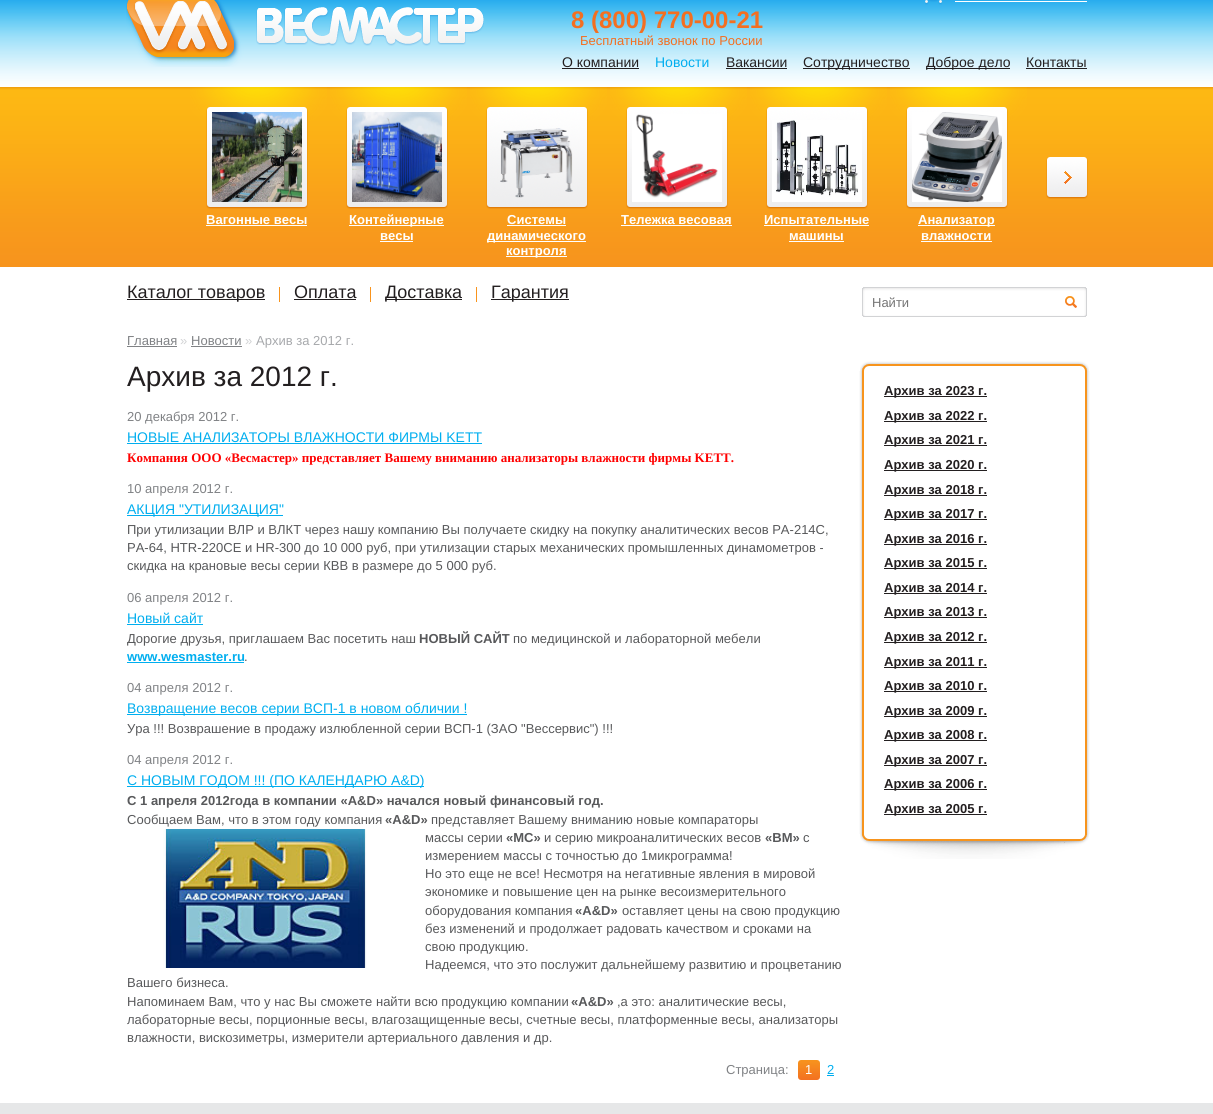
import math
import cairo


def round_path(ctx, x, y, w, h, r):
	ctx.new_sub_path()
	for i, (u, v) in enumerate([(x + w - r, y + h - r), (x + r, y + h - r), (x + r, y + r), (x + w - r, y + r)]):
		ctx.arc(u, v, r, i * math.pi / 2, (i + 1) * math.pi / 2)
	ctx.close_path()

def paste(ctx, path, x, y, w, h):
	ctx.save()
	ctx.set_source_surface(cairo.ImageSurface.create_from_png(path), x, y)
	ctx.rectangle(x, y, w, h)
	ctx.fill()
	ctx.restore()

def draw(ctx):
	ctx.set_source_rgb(1, 1, 1)
	ctx.paint()
	paste(ctx, 'media/1.png', 0, 0, 1213, 267)
	paste(ctx, 'media/2.png', 126, 0, 358, 67)
	paste(ctx, 'media/3.png', 925, 0, 17, 5)
	ctx.set_source_rgb(1, 1, 1)
	ctx.rectangle(955, 1, 132, 1)
	ctx.fill()
	ctx.select_font_face('Liberation Sans', cairo.FONT_SLANT_NORMAL, cairo.FONT_WEIGHT_BOLD)
	ctx.set_font_size(24)
	ctx.set_source_rgb(0.953, 0.435, 0.129)
	ctx.move_to(571, 28)
	ctx.show_text('8 (800) 770-00-21')
	ctx.select_font_face('Liberation Sans')
	ctx.set_font_size(13)
	ctx.move_to(580, 45)
	ctx.show_text('Бесплатный звонок по России')
	ctx.set_font_size(14)
	ctx.set_source_rgb(0.137, 0.122, 0.125)
	ctx.move_to(562, 67)
	ctx.show_text('О компании')
	ctx.rectangle(562, 68, 77, 1)
	ctx.fill()
	ctx.set_source_rgb(0, 0.682, 0.937)
	ctx.move_to(655, 67)
	ctx.show_text('Новости')
	ctx.set_source_rgb(0.137, 0.122, 0.125)
	ctx.move_to(726, 67)
	ctx.show_text('Вакансии')
	ctx.rectangle(726, 68, 61, 1)
	ctx.fill()
	ctx.rectangle(803, 68, 107, 1)
	ctx.fill()
	ctx.move_to(803, 67)
	ctx.show_text('Сотрудничество')
	ctx.rectangle(926, 68, 84, 1)
	ctx.fill()
	ctx.move_to(926, 67)
	ctx.show_text('Доброе дело')
	ctx.move_to(1026, 67)
	ctx.show_text('Контакты')
	ctx.rectangle(1026, 68, 61, 1)
	ctx.fill()
	paste(ctx, 'media/4.png', 1046, 157, 42, 42)
	paste(ctx, 'media/5.png', 190, 87, 137, 122)
	paste(ctx, 'media/6.png', 212, 112, 90, 90)
	ctx.select_font_face('Liberation Sans', cairo.FONT_SLANT_NORMAL, cairo.FONT_WEIGHT_BOLD)
	ctx.set_font_size(13.02)
	ctx.set_source_rgb(1, 1, 1)
	ctx.move_to(206, 224)
	ctx.show_text('Вагонные весы')
	ctx.rectangle(206, 225, 101, 1)
	ctx.fill()
	paste(ctx, 'media/5.png', 330, 87, 137, 122)
	paste(ctx, 'media/7.png', 352, 112, 90, 90)
	ctx.rectangle(349, 225, 95, 1)
	ctx.fill()
	ctx.move_to(349, 224)
	ctx.show_text('Контейнерные')
	ctx.move_to(380, 240)
	ctx.show_text('весы')
	ctx.rectangle(380, 241, 33, 1)
	ctx.fill()
	paste(ctx, 'media/5.png', 470, 87, 137, 122)
	paste(ctx, 'media/8.png', 500, 128, 73, 70)
	ctx.move_to(507, 224)
	ctx.show_text('Системы')
	ctx.rectangle(507, 225, 59, 1)
	ctx.fill()
	ctx.rectangle(487, 241, 99, 1)
	ctx.fill()
	ctx.move_to(487, 240)
	ctx.show_text('динамического')
	ctx.rectangle(506, 256, 61, 1)
	ctx.fill()
	ctx.move_to(506, 255)
	ctx.show_text('контроля')
	paste(ctx, 'media/5.png', 610, 87, 137, 122)
	paste(ctx, 'media/9.png', 632, 114, 90, 88)
	ctx.move_to(621, 224)
	ctx.show_text('Тележка весовая')
	ctx.rectangle(621, 225, 111, 1)
	ctx.fill()
	paste(ctx, 'media/5.png', 750, 87, 137, 122)
	paste(ctx, 'media/10.png', 772, 120, 90, 82)
	ctx.move_to(764, 224)
	ctx.show_text('Испытательные')
	ctx.rectangle(764, 225, 105, 1)
	ctx.fill()
	ctx.move_to(789, 240)
	ctx.show_text('машины')
	ctx.rectangle(789, 241, 55, 1)
	ctx.fill()
	paste(ctx, 'media/5.png', 890, 87, 137, 122)
	paste(ctx, 'media/11.png', 912, 112, 90, 90)
	ctx.rectangle(918, 225, 77, 1)
	ctx.fill()
	ctx.move_to(918, 224)
	ctx.show_text('Анализатор')
	ctx.move_to(921, 240)
	ctx.show_text('влажности')
	ctx.rectangle(921, 241, 71, 1)
	ctx.fill()
	ctx.set_source_rgb(0.137, 0.122, 0.125)
	ctx.rectangle(127, 299, 138, 1)
	ctx.fill()
	ctx.select_font_face('Liberation Sans')
	ctx.set_font_size(18)
	ctx.move_to(127, 298)
	ctx.show_text('Каталог товаров')
	ctx.set_source_rgb(0.973, 0.58, 0.114)
	ctx.rectangle(279, 287, 1, 15)
	ctx.fill()
	ctx.set_source_rgb(0.137, 0.122, 0.125)
	ctx.move_to(294, 298)
	ctx.show_text('Оплата')
	ctx.rectangle(294, 299, 62, 1)
	ctx.fill()
	ctx.set_source_rgb(0.973, 0.58, 0.114)
	ctx.rectangle(370, 287, 1, 15)
	ctx.fill()
	ctx.set_source_rgb(0.137, 0.122, 0.125)
	ctx.rectangle(385, 299, 77, 1)
	ctx.fill()
	ctx.move_to(385, 298)
	ctx.show_text('Доставка')
	ctx.set_source_rgb(0.973, 0.58, 0.114)
	ctx.rectangle(476, 287, 1, 15)
	ctx.fill()
	ctx.set_source_rgb(0.137, 0.122, 0.125)
	ctx.rectangle(491, 299, 78, 1)
	ctx.fill()
	ctx.move_to(491, 298)
	ctx.show_text('Гарантия')
	paste(ctx, 'media/12.png', 862, 287, 225, 30)
	ctx.set_font_size(13)
	ctx.set_source_rgb(0.459, 0.459, 0.459)
	ctx.move_to(872, 307)
	ctx.show_text('Найти')
	paste(ctx, 'media/13.png', 1065, 296, 12, 12)
	ctx.set_font_size(13.02)
	ctx.set_source_rgb(0.502, 0.51, 0.522)
	ctx.move_to(127, 345)
	ctx.show_text('Главная')
	ctx.rectangle(127, 346, 50, 1)
	ctx.fill()
	ctx.set_font_size(13)
	ctx.set_source_rgb(0.824, 0.827, 0.835)
	ctx.move_to(180, 345)
	ctx.show_text('»')
	ctx.set_font_size(13.02)
	ctx.set_source_rgb(0.502, 0.51, 0.522)
	ctx.move_to(191, 345)
	ctx.show_text('Новости')
	ctx.rectangle(191, 346, 51, 1)
	ctx.fill()
	ctx.set_font_size(13)
	ctx.set_source_rgb(0.824, 0.827, 0.835)
	ctx.move_to(245, 345)
	ctx.show_text('»')
	ctx.set_font_size(13.02)
	ctx.set_source_rgb(0.655, 0.663, 0.675)
	ctx.move_to(256, 345)
	ctx.show_text('Архив за 2012 г.')
	ctx.set_font_size(28)
	ctx.set_source_rgb(0.137, 0.122, 0.125)
	ctx.move_to(127, 386)
	ctx.show_text('Архив за 2012 г.')
	ctx.set_font_size(13.02)
	ctx.set_source_rgb(0.502, 0.51, 0.522)
	ctx.move_to(127, 421)
	ctx.show_text('20 декабря 2012 г.')
	ctx.set_font_size(14)
	ctx.set_source_rgb(0, 0.682, 0.937)
	ctx.move_to(127, 442)
	ctx.show_text('НОВЫЕ АНАЛИЗАТОРЫ ВЛАЖНОСТИ ФИРМЫ KETT')
	ctx.rectangle(127, 443, 355, 1)
	ctx.fill()
	ctx.select_font_face('Liberation Serif', cairo.FONT_SLANT_NORMAL, cairo.FONT_WEIGHT_BOLD)
	ctx.set_font_size(13.02)
	ctx.set_source_rgb(1, 0, 0)
	ctx.move_to(127, 462)
	ctx.show_text('Компания ООО «Весмастер» представляет Вашему вниманию анализаторы влажности фирмы KETT.')
	ctx.select_font_face('Liberation Sans')
	ctx.set_source_rgb(0.502, 0.51, 0.522)
	ctx.move_to(127, 493)
	ctx.show_text('10 апреля 2012 г.')
	ctx.set_source_rgb(0, 0.682, 0.937)
	ctx.rectangle(127, 515, 156, 1)
	ctx.fill()
	ctx.set_font_size(14)
	ctx.move_to(127, 514)
	ctx.show_text('АКЦИЯ "УТИЛИЗАЦИЯ"')
	ctx.set_font_size(13.02)
	ctx.set_source_rgb(0.345, 0.349, 0.357)
	for x, y, s in [
		(127, 534, 'При утилизации ВЛР и ВЛКТ через нашу компанию Вы получаете скидку на покупку аналитических весов РА-214С,'),
		(127, 552, 'РА-64, HTR-220CE и HR-300 до 10 000 руб, при утилизации старых механических промышленных динамометров -'),
		(127, 570, 'скидка на крановые весы серии КВВ в размере до 5 000 руб.'),
	]:
		ctx.move_to(x, y)
		ctx.show_text(s)
	ctx.set_source_rgb(0.502, 0.51, 0.522)
	ctx.move_to(127, 602)
	ctx.show_text('06 апреля 2012 г.')
	ctx.set_font_size(14)
	ctx.set_source_rgb(0, 0.682, 0.937)
	ctx.move_to(127, 623)
	ctx.show_text('Новый сайт')
	ctx.rectangle(127, 624, 76, 1)
	ctx.fill()
	ctx.set_font_size(13.02)
	ctx.set_source_rgb(0.345, 0.349, 0.357)
	ctx.move_to(127, 643)
	ctx.show_text('Дорогие друзья, приглашаем Вас посетить наш')
	ctx.select_font_face('Liberation Sans', cairo.FONT_SLANT_NORMAL, cairo.FONT_WEIGHT_BOLD)
	ctx.move_to(419, 643)
	ctx.show_text('НОВЫЙ САЙТ')
	ctx.select_font_face('Liberation Sans')
	ctx.move_to(513, 643)
	ctx.show_text('по медицинской и лабораторной мебели')
	ctx.select_font_face('Liberation Sans', cairo.FONT_SLANT_NORMAL, cairo.FONT_WEIGHT_BOLD)
	ctx.set_source_rgb(0, 0.682, 0.937)
	ctx.move_to(127, 661)
	ctx.show_text('www.wesmaster.ru')
	ctx.rectangle(127, 662, 117, 1)
	ctx.fill()
	ctx.select_font_face('Liberation Sans')
	ctx.set_source_rgb(0.345, 0.349, 0.357)
	ctx.move_to(244, 661)
	ctx.show_text('.')
	ctx.set_source_rgb(0.502, 0.51, 0.522)
	ctx.move_to(127, 692)
	ctx.show_text('04 апреля 2012 г.')
	ctx.set_source_rgb(0, 0.682, 0.937)
	ctx.rectangle(127, 714, 340, 1)
	ctx.fill()
	ctx.set_font_size(14)
	ctx.move_to(127, 713)
	ctx.show_text('Возвращение весов серии ВСП-1 в новом обличии !')
	ctx.set_font_size(13)
	ctx.set_source_rgb(0.345, 0.349, 0.357)
	ctx.move_to(127, 733)
	ctx.show_text('Ура !!! Возврашение в продажу излюбленной серии ВСП-1 (ЗАО "Вессервис") !!!')
	ctx.set_font_size(13.02)
	ctx.set_source_rgb(0.502, 0.51, 0.522)
	ctx.move_to(127, 764)
	ctx.show_text('04 апреля 2012 г.')
	ctx.set_source_rgb(0, 0.682, 0.937)
	ctx.rectangle(127, 786, 297, 1)
	ctx.fill()
	ctx.set_font_size(14)
	ctx.move_to(127, 785)
	ctx.show_text('C НОВЫМ ГОДОМ !!! (ПО КАЛЕНДАРЮ A&D)')
	ctx.select_font_face('Liberation Sans', cairo.FONT_SLANT_NORMAL, cairo.FONT_WEIGHT_BOLD)
	ctx.set_font_size(13.02)
	ctx.set_source_rgb(0.345, 0.349, 0.357)
	ctx.move_to(127, 805)
	ctx.show_text('С 1 апреля 2012года в компании «A&D» начался новый финансовый год.')
	ctx.select_font_face('Liberation Sans')
	ctx.move_to(127, 824)
	ctx.show_text('Сообщаем Вам, что в этом году компания')
	ctx.select_font_face('Liberation Sans', cairo.FONT_SLANT_NORMAL, cairo.FONT_WEIGHT_BOLD)
	ctx.move_to(385, 824)
	ctx.show_text('«A&D»')
	ctx.select_font_face('Liberation Sans')
	ctx.move_to(431, 824)
	ctx.show_text('представляет Вашему вниманию новые компараторы')
	paste(ctx, 'media/14.png', 163, 829, 204, 139)
	ctx.move_to(425, 842)
	ctx.show_text('массы серии')
	ctx.select_font_face('Liberation Sans', cairo.FONT_SLANT_NORMAL, cairo.FONT_WEIGHT_BOLD)
	ctx.move_to(506, 842)
	ctx.show_text('«МС»')
	ctx.select_font_face('Liberation Sans')
	ctx.move_to(544, 842)
	ctx.show_text('и серию микроаналитических весов')
	ctx.select_font_face('Liberation Sans', cairo.FONT_SLANT_NORMAL, cairo.FONT_WEIGHT_BOLD)
	ctx.move_to(765, 842)
	ctx.show_text('«ВМ»')
	ctx.select_font_face('Liberation Sans')
	for x, y, s in [
		(803, 842, 'с'),
		(425, 860, 'измерением массы с точностью до 1микрограмма!'),
		(425, 878, 'Но это еще не все! Несмотря на негативные явления в мировой'),
		(425, 896, 'экономике и повышение цен на рынке весоизмерительного'),
		(425, 915, 'оборудования компания'),
	]:
		ctx.move_to(x, y)
		ctx.show_text(s)
	ctx.select_font_face('Liberation Sans', cairo.FONT_SLANT_NORMAL, cairo.FONT_WEIGHT_BOLD)
	ctx.move_to(575, 915)
	ctx.show_text('«A&D»')
	ctx.select_font_face('Liberation Sans')
	for x, y, s in [
		(622, 915, 'оставляет цены на свою продукцию'),
		(425, 933, 'без изменений и продолжает радовать качеством и сроками на'),
		(425, 951, 'свою продукцию.'),
		(425, 969, 'Надеемся, что это послужит дальнейшему развитию и процветанию'),
		(127, 987, 'Вашего бизнеса.'),
		(127, 1006, 'Напоминаем Вам, что у нас Вы сможете найти всю продукцию компании'),
	]:
		ctx.move_to(x, y)
		ctx.show_text(s)
	ctx.select_font_face('Liberation Sans', cairo.FONT_SLANT_NORMAL, cairo.FONT_WEIGHT_BOLD)
	ctx.move_to(571, 1006)
	ctx.show_text('«A&D»')
	ctx.select_font_face('Liberation Sans')
	for x, y, s in [
		(617, 1006, ',а это: аналитические весы,'),
		(127, 1024, 'лабораторные весы, порционные весы, влагозащищенные весы, счетные весы, платформенные весы, анализаторы'),
		(127, 1042, 'влажности, вискозиметры, измерители артериального давления и др.'),
	]:
		ctx.move_to(x, y)
		ctx.show_text(s)
	ctx.set_font_size(13)
	ctx.set_source_rgb(0.502, 0.51, 0.522)
	ctx.move_to(726, 1074)
	ctx.show_text('Страница:')
	gradient = cairo.LinearGradient(809, 1060, 809, 1080)
	gradient.add_color_stop_rgba(0, 0.969, 0.58, 0.114, 1)
	gradient.add_color_stop_rgba(1, 0.953, 0.443, 0.129, 1)
	ctx.set_source(gradient)
	round_path(ctx, 798, 1060, 22, 20, 3)
	ctx.fill()
	ctx.set_source_rgb(1, 1, 1)
	ctx.move_to(805, 1074)
	ctx.show_text('1')
	ctx.set_source_rgb(0, 0.682, 0.937)
	ctx.move_to(827, 1074)
	ctx.show_text('2')
	ctx.rectangle(827, 1075, 7, 1)
	ctx.fill()
	paste(ctx, 'media/15.png', 860, 834, 229, 25)
	paste(ctx, 'media/16.png', 860, 361, 229, 10)
	paste(ctx, 'media/17.png', 859, 371, 231, 463)
	ctx.set_source_rgb(0.137, 0.122, 0.125)
	ctx.rectangle(884, 396, 103, 1)
	ctx.fill()
	ctx.select_font_face('Liberation Sans', cairo.FONT_SLANT_NORMAL, cairo.FONT_WEIGHT_BOLD)
	ctx.move_to(884, 395)
	ctx.show_text('Архив за 2023 г.')
	ctx.rectangle(884, 421, 103, 1)
	ctx.fill()
	ctx.move_to(884, 420)
	ctx.show_text('Архив за 2022 г.')
	ctx.rectangle(884, 445, 103, 1)
	ctx.fill()
	ctx.move_to(884, 444)
	ctx.show_text('Архив за 2021 г.')
	ctx.rectangle(884, 470, 103, 1)
	ctx.fill()
	ctx.move_to(884, 469)
	ctx.show_text('Архив за 2020 г.')
	ctx.rectangle(884, 495, 103, 1)
	ctx.fill()
	ctx.move_to(884, 494)
	ctx.show_text('Архив за 2018 г.')
	ctx.rectangle(884, 519, 103, 1)
	ctx.fill()
	ctx.move_to(884, 518)
	ctx.show_text('Архив за 2017 г.')
	ctx.rectangle(884, 544, 103, 1)
	ctx.fill()
	ctx.move_to(884, 543)
	ctx.show_text('Архив за 2016 г.')
	ctx.rectangle(884, 568, 103, 1)
	ctx.fill()
	ctx.move_to(884, 567)
	ctx.show_text('Архив за 2015 г.')
	ctx.rectangle(884, 593, 103, 1)
	ctx.fill()
	ctx.move_to(884, 592)
	ctx.show_text('Архив за 2014 г.')
	ctx.rectangle(884, 617, 103, 1)
	ctx.fill()
	ctx.move_to(884, 616)
	ctx.show_text('Архив за 2013 г.')
	ctx.rectangle(884, 642, 103, 1)
	ctx.fill()
	ctx.move_to(884, 641)
	ctx.show_text('Архив за 2012 г.')
	ctx.rectangle(884, 667, 103, 1)
	ctx.fill()
	ctx.move_to(884, 666)
	ctx.show_text('Архив за 2011 г.')
	ctx.rectangle(884, 691, 103, 1)
	ctx.fill()
	ctx.move_to(884, 690)
	ctx.show_text('Архив за 2010 г.')
	ctx.rectangle(884, 716, 103, 1)
	ctx.fill()
	ctx.move_to(884, 715)
	ctx.show_text('Архив за 2009 г.')
	ctx.rectangle(884, 740, 103, 1)
	ctx.fill()
	ctx.move_to(884, 739)
	ctx.show_text('Архив за 2008 г.')
	ctx.rectangle(884, 765, 103, 1)
	ctx.fill()
	ctx.move_to(884, 764)
	ctx.show_text('Архив за 2007 г.')
	ctx.rectangle(884, 789, 103, 1)
	ctx.fill()
	ctx.move_to(884, 788)
	ctx.show_text('Архив за 2006 г.')
	ctx.rectangle(884, 814, 103, 1)
	ctx.fill()
	ctx.move_to(884, 813)
	ctx.show_text('Архив за 2005 г.')
	ctx.set_source_rgb(0.902, 0.906, 0.91)
	ctx.rectangle(0, 1103, 1213, 11)
	ctx.fill()


surface = cairo.ImageSurface(cairo.FORMAT_RGB24, 1213, 1114)
ctx = cairo.Context(surface)
options = cairo.FontOptions()
options.set_hint_metrics(cairo.HINT_METRICS_OFF)
options.set_hint_style(cairo.HINT_STYLE_NONE)
ctx.set_font_options(options)
ctx.set_miter_limit(4)
draw(ctx)
surface.write_to_png('image.png')
